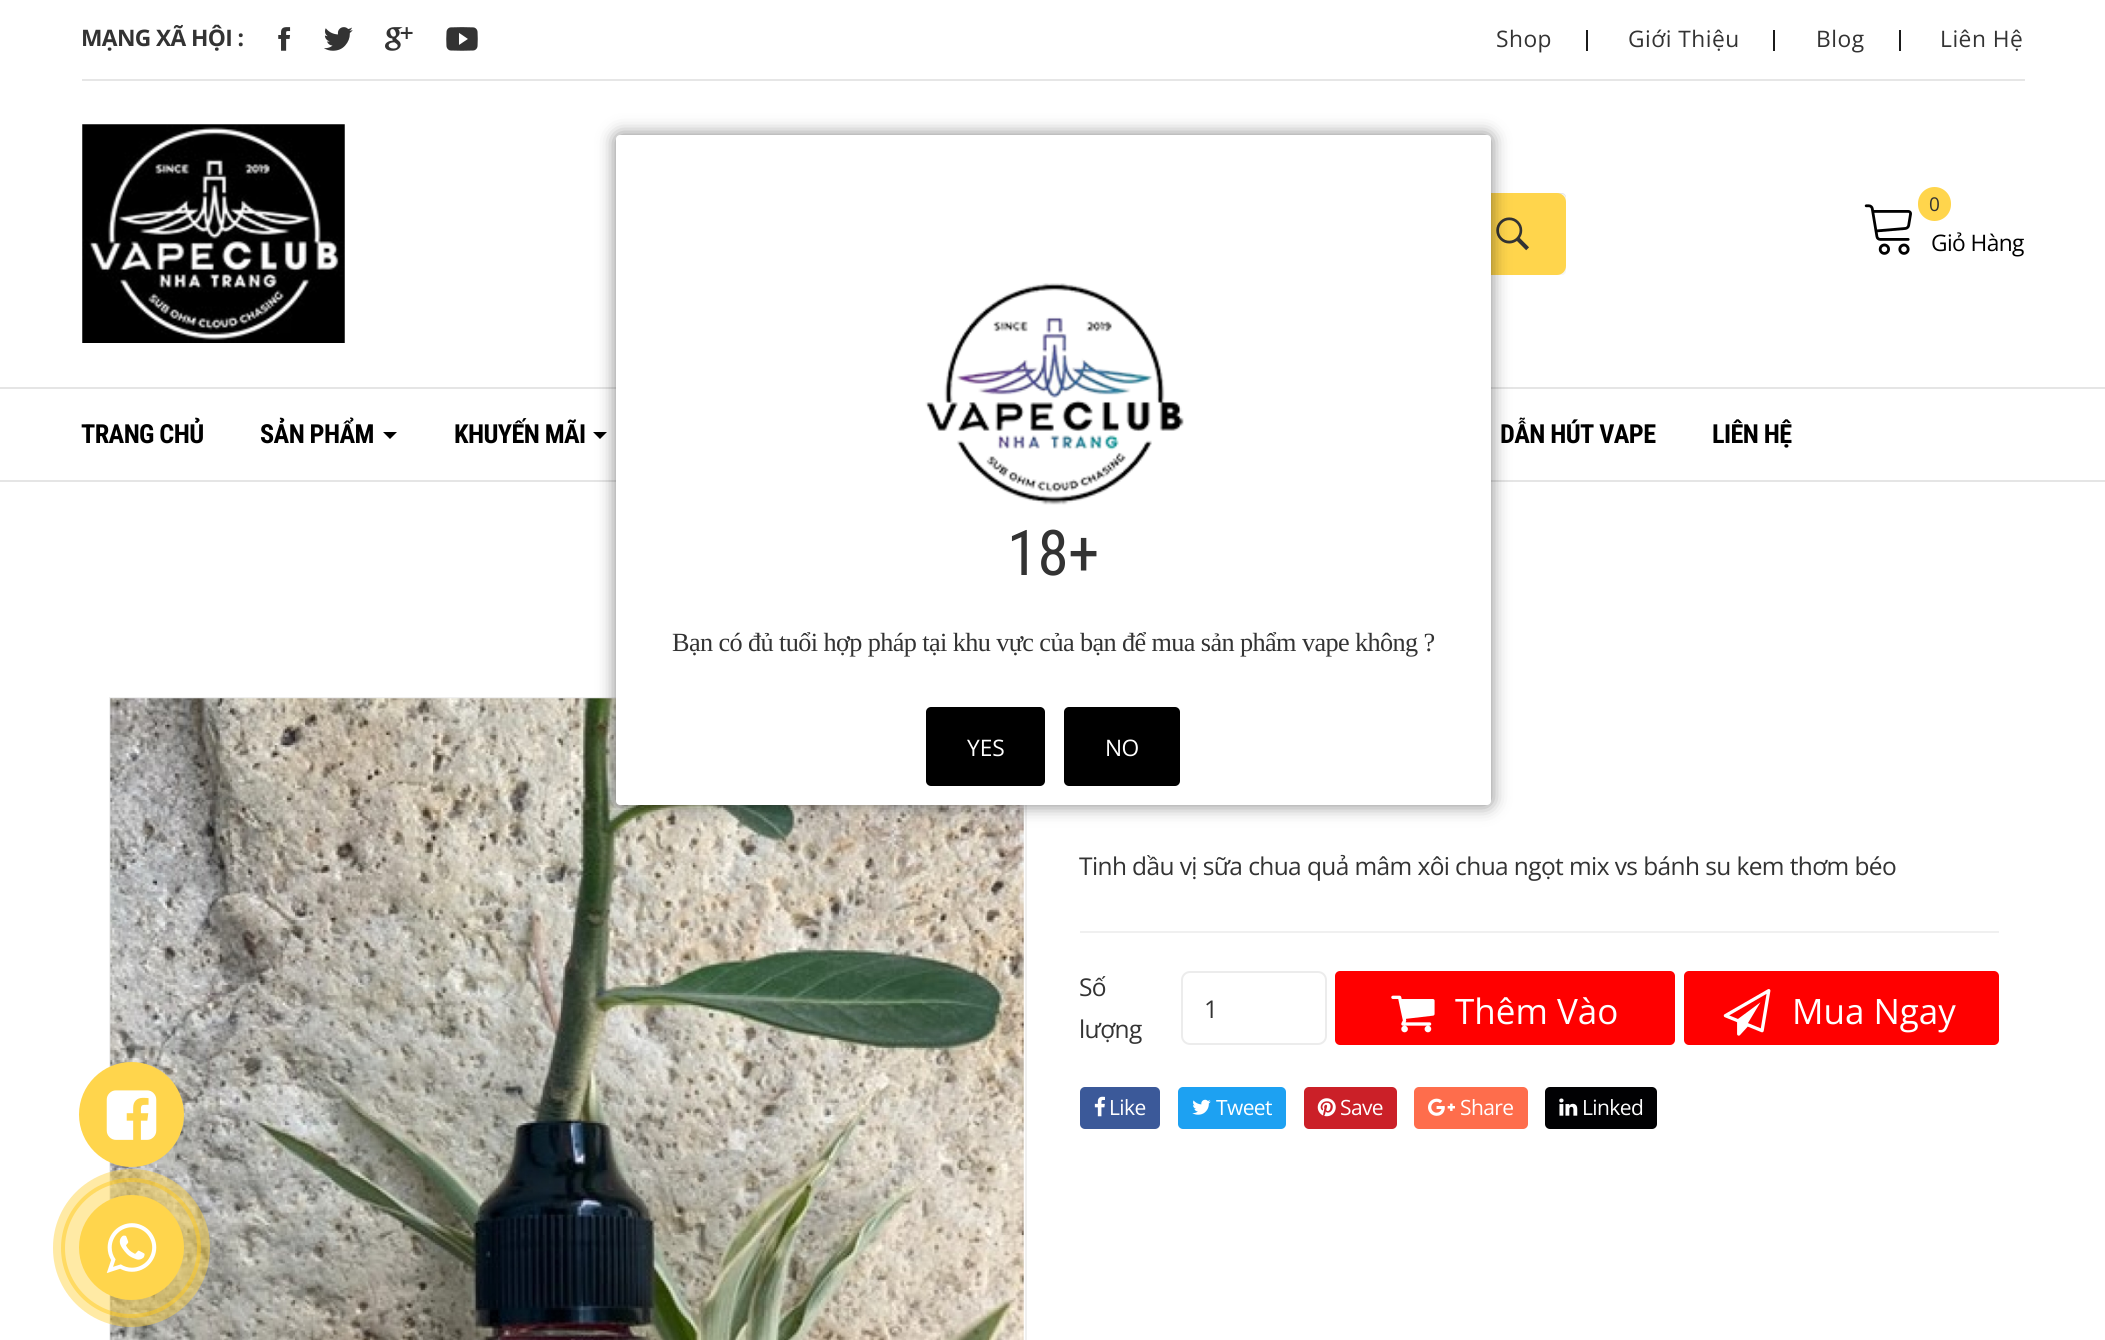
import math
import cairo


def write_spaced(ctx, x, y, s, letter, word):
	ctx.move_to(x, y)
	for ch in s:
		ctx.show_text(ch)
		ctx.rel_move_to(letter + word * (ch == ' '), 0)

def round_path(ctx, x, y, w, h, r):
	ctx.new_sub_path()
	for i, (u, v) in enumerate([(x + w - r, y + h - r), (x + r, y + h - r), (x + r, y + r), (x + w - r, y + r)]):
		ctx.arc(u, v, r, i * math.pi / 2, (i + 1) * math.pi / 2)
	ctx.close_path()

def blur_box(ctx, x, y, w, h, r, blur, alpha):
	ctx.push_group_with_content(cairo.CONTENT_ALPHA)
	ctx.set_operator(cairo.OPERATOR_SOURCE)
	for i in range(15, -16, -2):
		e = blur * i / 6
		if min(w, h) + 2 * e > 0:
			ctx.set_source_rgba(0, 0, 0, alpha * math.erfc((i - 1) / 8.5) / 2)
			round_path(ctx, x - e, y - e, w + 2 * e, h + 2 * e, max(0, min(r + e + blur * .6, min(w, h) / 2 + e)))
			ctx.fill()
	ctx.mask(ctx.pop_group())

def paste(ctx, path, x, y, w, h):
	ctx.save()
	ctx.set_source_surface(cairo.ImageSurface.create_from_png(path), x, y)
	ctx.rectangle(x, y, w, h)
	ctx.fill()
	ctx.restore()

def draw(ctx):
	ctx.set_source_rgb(1, 1, 1)
	ctx.paint()
	ctx.set_source_rgb(0.902, 0.902, 0.902)
	ctx.rectangle(82, 79, 1943, 2)
	ctx.fill()
	ctx.select_font_face('Open Sans', cairo.FONT_SLANT_NORMAL, cairo.FONT_WEIGHT_BOLD)
	ctx.set_font_size(22.75)
	ctx.set_source_rgb(0.2, 0.2, 0.2)
	write_spaced(ctx, 81, 46, 'MẠNG XÃ HỘI :', -0.6, 0)
	paste(ctx, 'media/1.png', 278, 27, 13, 24)
	paste(ctx, 'media/2.png', 324, 27, 29, 24)
	paste(ctx, 'media/3.png', 385, 27, 28, 24)
	paste(ctx, 'media/4.png', 446, 27, 32, 24)
	ctx.select_font_face('Open Sans')
	write_spaced(ctx, 1496, 47, 'Shop', 0.5, 0)
	ctx.set_source_rgb(0.106, 0.106, 0.106)
	ctx.rectangle(1586, 30, 2, 21)
	ctx.fill()
	ctx.set_source_rgb(0.2, 0.2, 0.2)
	write_spaced(ctx, 1628, 47, 'Giới Thiệu', 0.5, 0)
	ctx.set_source_rgb(0.106, 0.106, 0.106)
	ctx.rectangle(1773, 30, 2, 21)
	ctx.fill()
	ctx.set_source_rgb(0.2, 0.2, 0.2)
	write_spaced(ctx, 1816, 47, 'Blog', 0.5, 0)
	ctx.set_source_rgb(0.106, 0.106, 0.106)
	ctx.rectangle(1899, 30, 2, 21)
	ctx.fill()
	ctx.set_source_rgb(0.2, 0.2, 0.2)
	write_spaced(ctx, 1940, 47, 'Liên Hệ', 0.5, 0)
	paste(ctx, 'media/5.png', 82, 124, 263, 219)
	ctx.set_source_rgb(0.961, 0.961, 0.961)
	round_path(ctx, 621, 193, 945, 82, 4)
	ctx.fill()
	ctx.set_source_rgba(0, 0, 0, 0.07)
	ctx.new_path()
	ctx.move_to(626, 194)
	ctx.line_to(1562, 194)
	ctx.curve_to(1564, 194, 1566, 196, 1566, 199)
	ctx.line_to(1566, 197)
	ctx.curve_to(1566, 195, 1564, 193, 1562, 193)
	ctx.line_to(625, 193)
	ctx.curve_to(623, 193, 621, 195, 621, 197)
	ctx.line_to(621, 199)
	ctx.curve_to(621, 196, 623, 194, 626, 194)
	ctx.close_path()
	ctx.fill()
	ctx.set_source_rgb(1, 0.835, 0.298)
	ctx.new_path()
	ctx.move_to(1461, 193)
	ctx.line_to(1557, 193)
	ctx.curve_to(1562, 193, 1566, 197, 1566, 202)
	ctx.line_to(1566, 266)
	ctx.curve_to(1566, 271, 1562, 275, 1557, 275)
	ctx.line_to(1461, 275)
	ctx.close_path()
	ctx.fill()
	paste(ctx, 'media/6.png', 1496, 217, 33, 34)
	round_path(ctx, 1918, 187, 33, 34, 16.5)
	ctx.fill()
	ctx.set_font_size(19)
	ctx.set_source_rgb(0.2, 0.2, 0.2)
	write_spaced(ctx, 1929, 211, '0', -0.6, 0)
	paste(ctx, 'media/7.png', 1864, 204, 48, 51)
	ctx.set_font_size(22.75)
	ctx.set_source_rgb(0, 0, 0)
	write_spaced(ctx, 1931, 251, 'Giỏ Hàng', -0.6, 0)
	ctx.set_source_rgb(0.898, 0.898, 0.898)
	ctx.rectangle(0, 387, 2105, 2)
	ctx.fill()
	ctx.rectangle(0, 480, 2105, 2)
	ctx.fill()
	ctx.select_font_face('Roboto Condensed', cairo.FONT_SLANT_NORMAL, cairo.FONT_WEIGHT_BOLD)
	ctx.set_font_size(26.25)
	ctx.set_source_rgb(0, 0, 0)
	write_spaced(ctx, 81, 443, 'TRANG CHỦ', -0.6, 0)
	write_spaced(ctx, 260, 443, 'SẢN PHẨM', -0.6, 0)
	ctx.new_path()
	ctx.move_to(383, 432)
	ctx.line_to(397, 432)
	ctx.line_to(390, 439)
	ctx.close_path()
	ctx.fill()
	write_spaced(ctx, 454, 443, 'KHUYẾN MÃI', -0.6, 0)
	ctx.new_path()
	ctx.move_to(593, 432)
	ctx.line_to(607, 432)
	ctx.line_to(600, 439)
	ctx.close_path()
	ctx.fill()
	write_spaced(ctx, 1500, 443, 'DẪN HÚT VAPE', -0.6, 0)
	write_spaced(ctx, 1712, 443, 'LIÊN HỆ', -0.6, 0)
	ctx.rectangle(110, 698, 916, 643)
	ctx.set_source_rgb(0.941, 0.941, 0.941)
	ctx.stroke()
	paste(ctx, 'media/9.png', 110, 698, 914, 642)
	ctx.set_source_rgb(0, 0, 0)
	blur_box(ctx, 616, 135, 875, 670, 4, 9, 0.5)
	ctx.set_source_rgb(1, 1, 1)
	round_path(ctx, 616, 135, 875, 670, 4)
	ctx.fill()
	paste(ctx, 'media/8.png', 925, 283, 259, 222)
	ctx.select_font_face('Roboto Condensed')
	ctx.set_font_size(63)
	ctx.set_source_rgb(0.2, 0.2, 0.2)
	write_spaced(ctx, 1007, 575, '18+', -0.6, 0)
	ctx.select_font_face('Liberation Serif')
	ctx.set_font_size(26.25)
	write_spaced(ctx, 672, 651, 'Bạn có đủ tuổi hợp pháp tại khu vực của bạn để mua sản phẩm vape không ?', -0.6, 0)
	ctx.set_source_rgb(0, 0, 0)
	round_path(ctx, 926, 707, 119, 79, 5)
	ctx.fill()
	ctx.select_font_face('Open Sans')
	ctx.set_font_size(22.75)
	ctx.set_source_rgb(1, 1, 1)
	ctx.move_to(967, 756)
	ctx.show_text('YES')
	ctx.set_source_rgb(0, 0, 0)
	round_path(ctx, 1064, 707, 116, 79, 5)
	ctx.fill()
	ctx.set_source_rgb(1, 1, 1)
	write_spaced(ctx, 1105, 756, 'NO', -0.6, 0)
	ctx.set_source_rgb(0.941, 0.941, 0.941)
	ctx.rectangle(1080, 931, 919, 2)
	ctx.fill()
	ctx.set_font_size(24.5)
	ctx.set_source_rgb(0.2, 0.2, 0.2)
	write_spaced(ctx, 1079, 875, 'Tinh dầu vị sữa chua quả mâm xôi chua ngọt mix vs bánh su kem thơm béo', -0.6, 0)
	write_spaced(ctx, 1079, 996, 'Số', -0.6, 0)
	round_path(ctx, 1182, 972, 144, 72, 8)
	ctx.set_source_rgb(0.922, 0.922, 0.922)
	ctx.stroke()
	ctx.set_source_rgb(0.2, 0.2, 0.2)
	ctx.move_to(1204, 1018)
	ctx.show_text('1')
	ctx.set_source_rgb(1, 0, 0)
	round_path(ctx, 1335, 971, 340, 74, 5)
	ctx.fill()
	paste(ctx, 'media/10.png', 1391, 995, 44, 38)
	ctx.set_font_size(35)
	ctx.set_source_rgb(1, 1, 1)
	ctx.move_to(1455, 1024)
	ctx.show_text('Thêm Vào')
	ctx.set_source_rgb(1, 0, 0)
	round_path(ctx, 1684, 971, 315, 74, 5)
	ctx.fill()
	paste(ctx, 'media/11.png', 1723, 989, 48, 47)
	ctx.set_source_rgb(1, 1, 1)
	ctx.move_to(1792, 1024)
	ctx.show_text('Mua Ngay')
	ctx.set_font_size(24.5)
	ctx.set_source_rgb(0.2, 0.2, 0.2)
	write_spaced(ctx, 1079, 1038, 'lượng', -0.6, 0)
	ctx.set_source_rgb(0.231, 0.349, 0.6)
	round_path(ctx, 1080, 1087, 80, 42, 5)
	ctx.fill()
	paste(ctx, 'media/12.png', 1094, 1096, 11, 21)
	ctx.set_font_size(21)
	ctx.set_source_rgb(1, 1, 1)
	write_spaced(ctx, 1109, 1115, 'Like', -0.6, 0)
	ctx.set_source_rgb(0.114, 0.631, 0.949)
	round_path(ctx, 1178, 1087, 108, 42, 5)
	ctx.fill()
	paste(ctx, 'media/13.png', 1192, 1099, 19, 16)
	ctx.set_source_rgb(1, 1, 1)
	write_spaced(ctx, 1216, 1115, 'Tweet', -0.6, 0)
	ctx.set_source_rgb(0.796, 0.125, 0.157)
	round_path(ctx, 1304, 1087, 93, 42, 5)
	ctx.fill()
	paste(ctx, 'media/14.png', 1317, 1098, 19, 19)
	ctx.set_source_rgb(1, 1, 1)
	write_spaced(ctx, 1340, 1115, 'Save', -0.6, 0)
	ctx.set_source_rgb(0.996, 0.427, 0.298)
	round_path(ctx, 1414, 1087, 114, 42, 5)
	ctx.fill()
	paste(ctx, 'media/15.png', 1428, 1098, 27, 18)
	ctx.set_source_rgb(1, 1, 1)
	write_spaced(ctx, 1460, 1115, 'Share', -0.6, 0)
	ctx.set_source_rgb(0.004, 0.004, 0.012)
	round_path(ctx, 1545, 1087, 112, 42, 5)
	ctx.fill()
	paste(ctx, 'media/16.png', 1559, 1098, 19, 18)
	ctx.set_source_rgb(1, 1, 1)
	write_spaced(ctx, 1582, 1115, 'Linked', -0.6, 0)
	ctx.set_source_rgb(1, 0.835, 0.298)
	ctx.new_path()
	ctx.arc(131.5, 1114.5, 52.5, 0, 2 * math.pi)
	ctx.fill()
	paste(ctx, 'media/17.png', 106, 1090, 51, 50)
	ctx.arc(131, 1248, 68, 0, 2 * math.pi)
	ctx.set_source_rgba(1, 0.765, 0, 0.5)
	ctx.set_line_width(4)
	ctx.stroke()
	ctx.set_source_rgba(1, 0.827, 0.267, 0.48)
	round_path(ctx, 53, 1169, 157, 158, 78.5)
	ctx.fill()
	ctx.set_source_rgb(1, 0.835, 0.298)
	ctx.arc(131.5, 1247.5, 52.5, 0, 2 * math.pi)
	ctx.fill()
	paste(ctx, 'media/18.png', 106, 1223, 51, 50)


surface = cairo.ImageSurface(cairo.FORMAT_RGB24, 2105, 1340)
ctx = cairo.Context(surface)
options = cairo.FontOptions()
options.set_hint_metrics(cairo.HINT_METRICS_OFF)
options.set_hint_style(cairo.HINT_STYLE_NONE)
ctx.set_font_options(options)
ctx.set_miter_limit(4)
draw(ctx)
surface.write_to_png('image.png')
